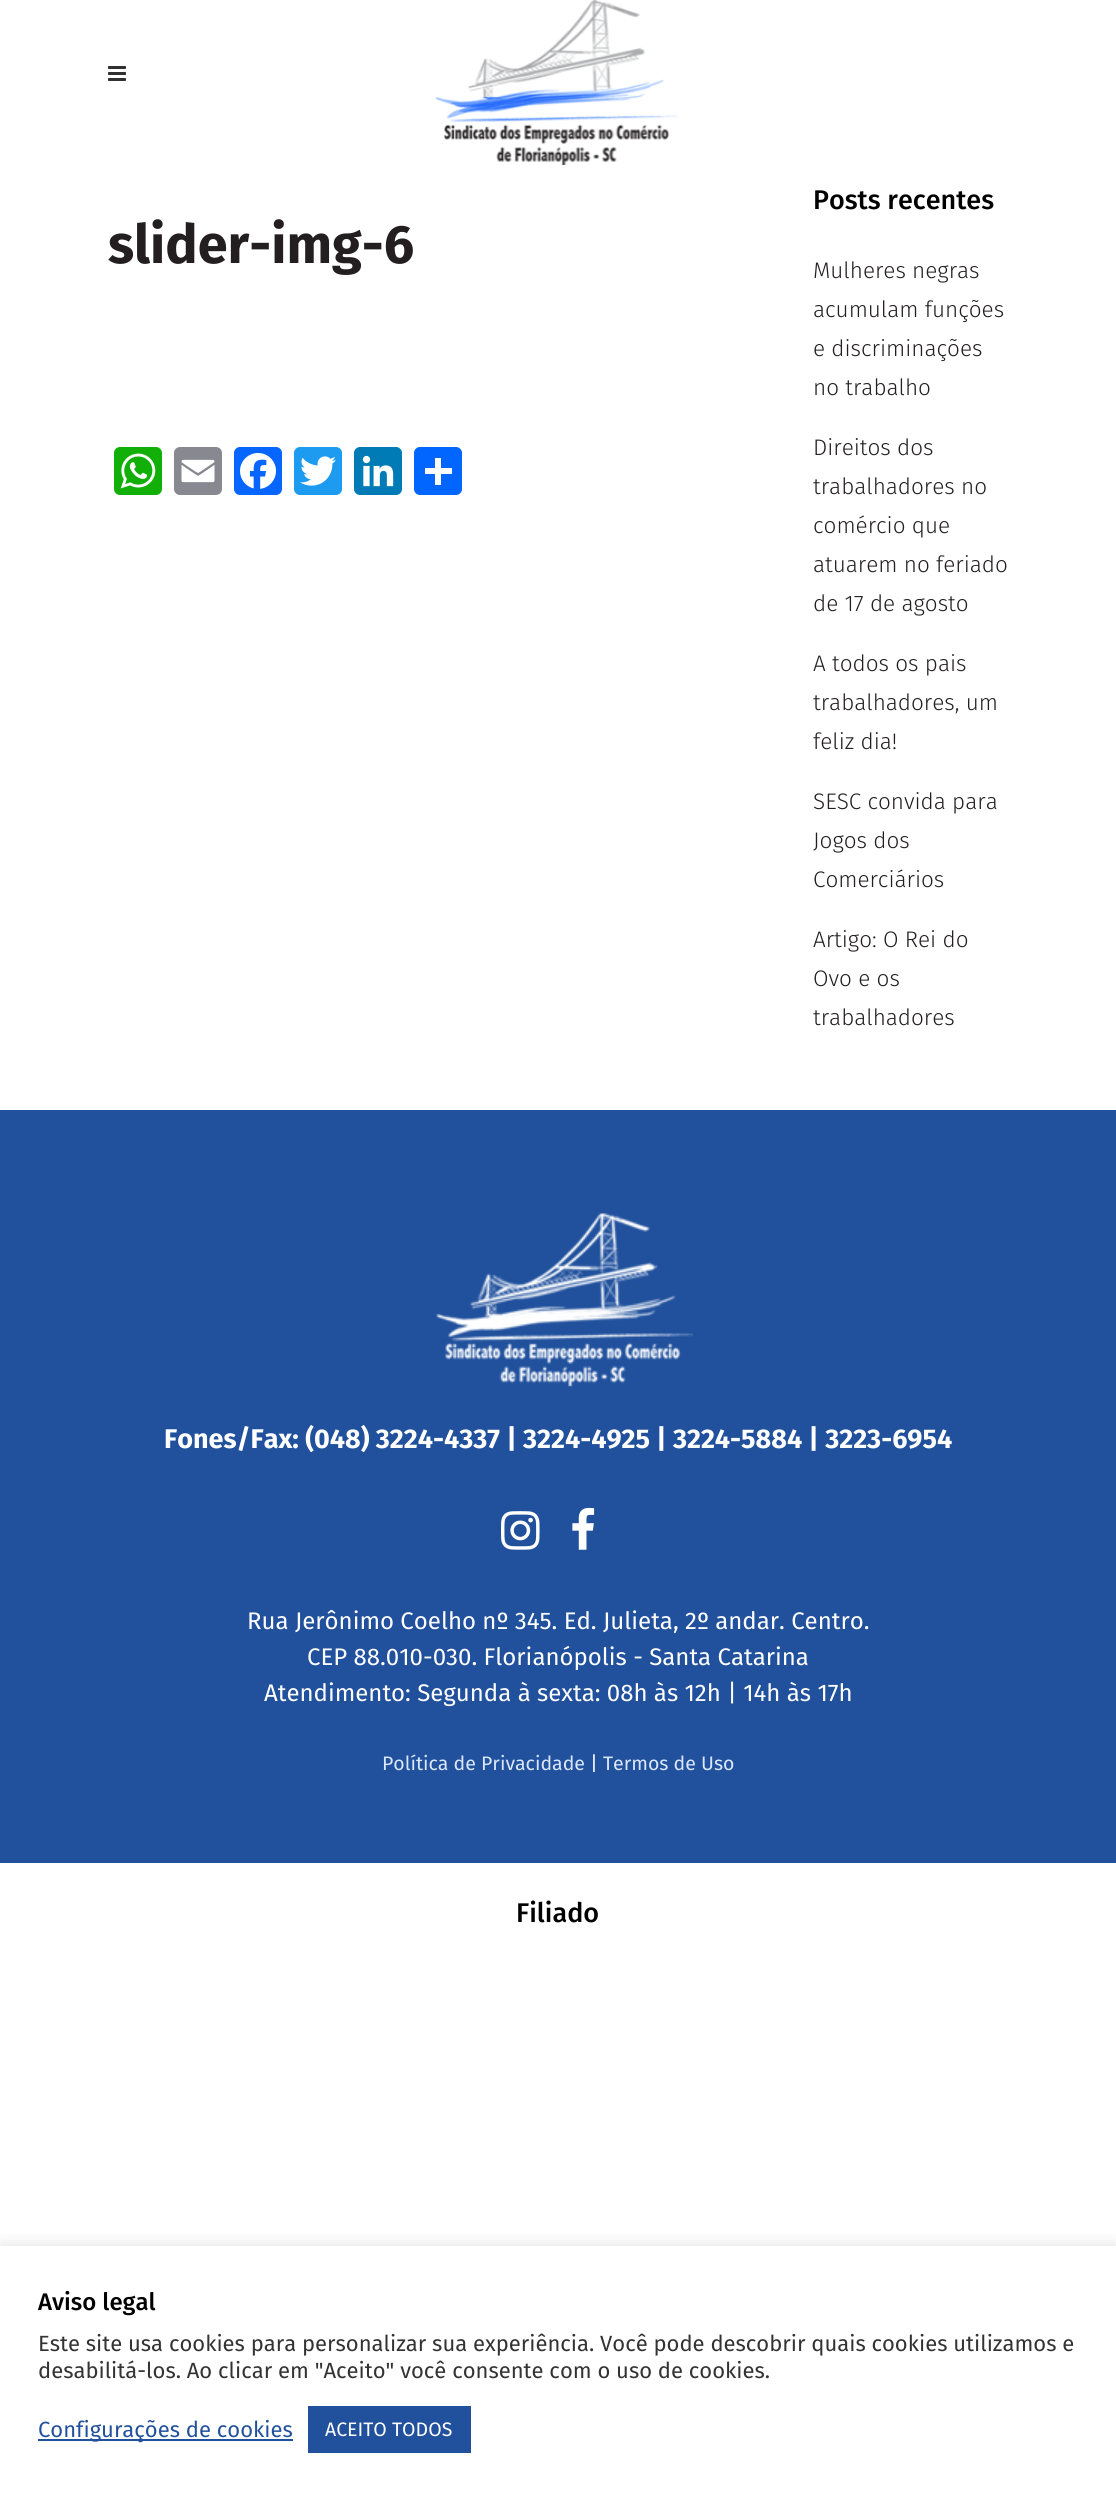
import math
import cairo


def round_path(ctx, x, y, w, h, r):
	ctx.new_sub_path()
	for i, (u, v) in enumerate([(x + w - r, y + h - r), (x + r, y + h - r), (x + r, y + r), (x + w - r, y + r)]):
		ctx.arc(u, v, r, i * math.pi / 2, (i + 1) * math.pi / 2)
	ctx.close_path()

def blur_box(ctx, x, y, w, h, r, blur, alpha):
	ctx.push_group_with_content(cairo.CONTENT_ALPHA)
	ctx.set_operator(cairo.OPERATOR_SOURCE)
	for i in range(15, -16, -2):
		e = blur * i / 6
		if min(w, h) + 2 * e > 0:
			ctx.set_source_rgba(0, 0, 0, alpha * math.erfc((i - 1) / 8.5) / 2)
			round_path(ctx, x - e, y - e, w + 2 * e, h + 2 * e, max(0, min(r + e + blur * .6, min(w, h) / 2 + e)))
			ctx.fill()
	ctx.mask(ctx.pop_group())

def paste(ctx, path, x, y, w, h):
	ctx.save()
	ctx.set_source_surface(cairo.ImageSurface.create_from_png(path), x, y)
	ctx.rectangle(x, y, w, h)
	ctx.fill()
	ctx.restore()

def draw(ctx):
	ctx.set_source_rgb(1, 1, 1)
	ctx.paint()
	paste(ctx, 'media/1.png', 108, 66, 18, 15)
	paste(ctx, 'media/2.png', 435, 0, 243, 165)
	ctx.select_font_face('Fira Sans', cairo.FONT_SLANT_NORMAL, cairo.FONT_WEIGHT_BOLD)
	ctx.set_font_size(54)
	ctx.set_source_rgb(0.137, 0.122, 0.125)
	ctx.move_to(108, 263)
	ctx.show_text('slider-img-6')
	ctx.set_source_rgb(0.071, 0.686, 0.039)
	round_path(ctx, 114, 447, 48, 48, 6)
	ctx.fill()
	paste(ctx, 'media/3.png', 120, 453, 36, 36)
	ctx.set_source_rgb(0.533, 0.537, 0.565)
	round_path(ctx, 174, 447, 48, 48, 6)
	ctx.fill()
	paste(ctx, 'media/4.png', 181, 459, 34, 24)
	ctx.set_source_rgb(0.031, 0.4, 1)
	round_path(ctx, 234, 447, 48, 48, 6)
	ctx.fill()
	paste(ctx, 'media/5.png', 240, 453, 36, 36)
	ctx.set_source_rgb(0.114, 0.608, 0.941)
	round_path(ctx, 294, 447, 48, 48, 6)
	ctx.fill()
	paste(ctx, 'media/6.png', 300, 456, 36, 30)
	ctx.set_source_rgb(0, 0.482, 0.71)
	round_path(ctx, 354, 447, 48, 48, 6)
	ctx.fill()
	paste(ctx, 'media/7.png', 362, 455, 32, 32)
	ctx.set_source_rgb(0.004, 0.4, 1)
	round_path(ctx, 414, 447, 48, 48, 6)
	ctx.fill()
	ctx.set_source_rgb(1, 1, 1)
	ctx.rectangle(435, 458, 6, 27)
	ctx.fill()
	ctx.rectangle(425, 468, 27, 6)
	ctx.fill()
	ctx.select_font_face('Fira Sans Medium')
	ctx.set_font_size(27)
	ctx.set_source_rgb(0, 0, 0)
	ctx.move_to(813, 209)
	ctx.show_text('Posts recentes')
	ctx.select_font_face('Fira Sans Light')
	ctx.set_font_size(22.5)
	ctx.set_source_rgb(0.137, 0.122, 0.125)
	for x, y, s in [
		(813, 278, 'Mulheres negras'),
		(813, 317, 'acumulam funções'),
		(813, 356, 'e discriminações'),
		(813, 395, 'no trabalho'),
		(813, 455, 'Direitos dos'),
		(813, 494, 'trabalhadores no'),
		(813, 533, 'comércio que'),
		(813, 572, 'atuarem no feriado'),
		(813, 611, 'de 17 de agosto'),
		(813, 671, 'A todos os pais'),
		(813, 710, 'trabalhadores, um'),
		(813, 749, 'feliz dia!'),
		(813, 809, 'SESC convida para'),
		(813, 848, 'Jogos dos'),
		(813, 887, 'Comerciários'),
		(813, 947, 'Artigo: O Rei do'),
		(813, 986, 'Ovo e os'),
		(813, 1025, 'trabalhadores'),
	]:
		ctx.move_to(x, y)
		ctx.show_text(s)
	ctx.set_source_rgb(0.129, 0.318, 0.616)
	ctx.rectangle(0, 1110, 1116, 753)
	ctx.fill()
	paste(ctx, 'media/8.png', 436, 1213, 257, 174)
	ctx.select_font_face('Fira Sans', cairo.FONT_SLANT_NORMAL, cairo.FONT_WEIGHT_BOLD)
	ctx.set_font_size(27)
	ctx.set_source_rgb(1, 1, 1)
	ctx.move_to(164, 1448)
	ctx.show_text('Fones/Fax: (048) 3224-4337 | 3224-4925 | 3224-5884 | 3223-6954')
	paste(ctx, 'media/9.png', 501, 1511, 39, 39)
	paste(ctx, 'media/10.png', 572, 1507, 23, 43)
	ctx.select_font_face('Fira Sans')
	ctx.set_font_size(24)
	for x, y, s in [
		(247, 1629, 'Rua Jerônimo Coelho nº 345. Ed. Julieta, 2º andar. Centro.'),
		(307, 1665, 'CEP 88.010-030. Florianópolis - Santa Catarina'),
		(264, 1701, 'Atendimento: Segunda à sexta: 08h às 12h | 14h às 17h'),
	]:
		ctx.move_to(x, y)
		ctx.show_text(s)
	ctx.set_font_size(19.5)
	ctx.set_source_rgb(0.855, 0.906, 1)
	ctx.move_to(382, 1770)
	ctx.show_text('Política de Privacidade')
	ctx.set_source_rgb(1, 1, 1)
	ctx.move_to(590, 1770)
	ctx.show_text('|')
	ctx.set_source_rgb(0.855, 0.906, 1)
	ctx.move_to(603, 1770)
	ctx.show_text('Termos de Uso')
	ctx.select_font_face('Fira Sans Medium')
	ctx.set_font_size(27)
	ctx.set_source_rgb(0, 0, 0)
	ctx.move_to(516, 1922)
	ctx.show_text('Filiado')
	ctx.save()
	ctx.rectangle(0, 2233, 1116, 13)
	ctx.clip()
	ctx.set_source_rgb(0.675, 0.671, 0.671)
	blur_box(ctx, 0, 2244, 1116, 252, 0, 7.5, 0.3)
	ctx.restore()
	ctx.set_font_size(24)
	ctx.move_to(38, 2310)
	ctx.show_text('Aviso legal')
	ctx.select_font_face('Fira Sans')
	ctx.set_font_size(22)
	ctx.set_source_rgb(0.2, 0.2, 0.2)
	ctx.move_to(38, 2351)
	ctx.show_text('Este site usa cookies para personalizar sua experiência. Você pode descobrir quais cookies utilizamos e')
	ctx.move_to(38, 2378)
	ctx.show_text('desabilitá-los. Ao clicar em "Aceito" você consente com o uso de cookies.')
	ctx.set_source_rgb(0.129, 0.318, 0.616)
	ctx.rectangle(38, 2439, 255, 2)
	ctx.fill()
	ctx.move_to(38, 2437)
	ctx.show_text('Configurações de cookies')
	ctx.rectangle(308, 2406, 163, 47)
	ctx.fill()
	ctx.set_font_size(19.5)
	ctx.set_source_rgb(1, 1, 1)
	ctx.move_to(325, 2436)
	ctx.show_text('ACEITO TODOS')


surface = cairo.ImageSurface(cairo.FORMAT_RGB24, 1116, 2497)
ctx = cairo.Context(surface)
options = cairo.FontOptions()
options.set_hint_metrics(cairo.HINT_METRICS_OFF)
options.set_hint_style(cairo.HINT_STYLE_NONE)
ctx.set_font_options(options)
ctx.set_miter_limit(4)
draw(ctx)
surface.write_to_png('image.png')
